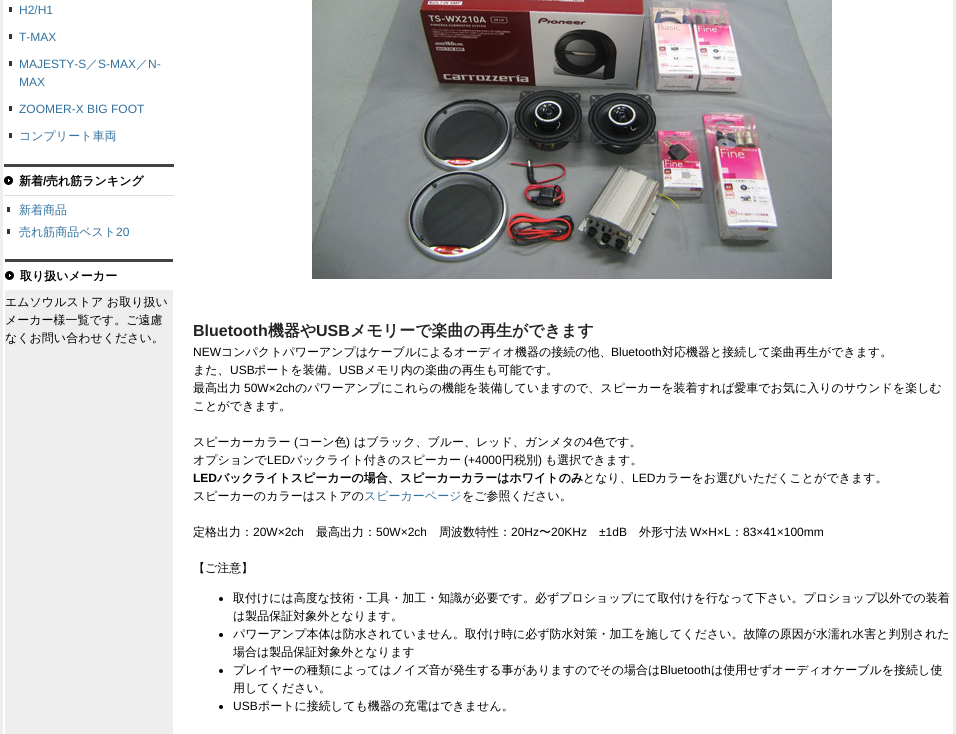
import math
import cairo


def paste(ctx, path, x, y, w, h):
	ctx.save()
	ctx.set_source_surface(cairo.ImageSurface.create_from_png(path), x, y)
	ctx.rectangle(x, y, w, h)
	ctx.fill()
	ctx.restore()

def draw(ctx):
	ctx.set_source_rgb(0.933, 0.933, 0.933)
	ctx.paint()
	ctx.set_source_rgb(1, 1, 1)
	ctx.rectangle(3, 0, 950, 734)
	ctx.fill()
	ctx.set_source_rgb(0.2, 0.2, 0.2)
	ctx.rectangle(9, 7, 3, 5)
	ctx.fill()
	ctx.select_font_face('Liberation Sans')
	ctx.set_font_size(12)
	ctx.set_source_rgb(0.196, 0.447, 0.62)
	ctx.move_to(19, 14)
	ctx.show_text('H2/H1')
	ctx.set_source_rgb(0.2, 0.2, 0.2)
	ctx.rectangle(9, 34, 3, 5)
	ctx.fill()
	ctx.set_source_rgb(0.196, 0.447, 0.62)
	ctx.move_to(19, 41)
	ctx.show_text('T-MAX')
	ctx.set_source_rgb(0.2, 0.2, 0.2)
	ctx.rectangle(9, 61, 3, 5)
	ctx.fill()
	ctx.set_source_rgb(0.196, 0.447, 0.62)
	ctx.move_to(19, 68)
	ctx.show_text('MAJESTY-S')
	ctx.select_font_face('WenQuanYi Zen Hei Medium')
	ctx.move_to(86, 68)
	ctx.show_text('／')
	ctx.select_font_face('Liberation Sans')
	ctx.move_to(98, 68)
	ctx.show_text('S-MAX')
	ctx.select_font_face('WenQuanYi Zen Hei Medium')
	ctx.move_to(136, 68)
	ctx.show_text('／')
	ctx.select_font_face('Liberation Sans')
	ctx.move_to(148, 68)
	ctx.show_text('N-')
	ctx.move_to(19, 86)
	ctx.show_text('MAX')
	ctx.set_source_rgb(0.2, 0.2, 0.2)
	ctx.rectangle(9, 106, 3, 5)
	ctx.fill()
	ctx.set_source_rgb(0.196, 0.447, 0.62)
	ctx.move_to(19, 113)
	ctx.show_text('ZOOMER-X BIG FOOT')
	ctx.set_source_rgb(0.2, 0.2, 0.2)
	ctx.rectangle(9, 133, 3, 5)
	ctx.fill()
	ctx.select_font_face('WenQuanYi Zen Hei Medium')
	ctx.set_source_rgb(0.196, 0.447, 0.62)
	ctx.move_to(19, 140)
	ctx.show_text('コンプリート車両')
	paste(ctx, 'media/1.png', 4, 176, 9, 9)
	ctx.set_source_rgb(0.263, 0.263, 0.263)
	ctx.rectangle(4, 164, 170, 3)
	ctx.fill()
	ctx.set_source_rgb(0.867, 0.867, 0.867)
	ctx.rectangle(4, 195, 170, 1)
	ctx.fill()
	ctx.select_font_face('WenQuanYi Zen Hei', cairo.FONT_SLANT_NORMAL, cairo.FONT_WEIGHT_BOLD)
	ctx.set_source_rgb(0, 0, 0)
	ctx.move_to(19, 185)
	ctx.show_text('新着')
	ctx.select_font_face('Liberation Sans', cairo.FONT_SLANT_NORMAL, cairo.FONT_WEIGHT_BOLD)
	ctx.move_to(43, 185)
	ctx.show_text('/')
	ctx.select_font_face('WenQuanYi Zen Hei', cairo.FONT_SLANT_NORMAL, cairo.FONT_WEIGHT_BOLD)
	ctx.move_to(46, 185)
	ctx.show_text('売れ筋ランキング')
	ctx.set_source_rgb(0.2, 0.2, 0.2)
	ctx.rectangle(7, 207, 3, 5)
	ctx.fill()
	ctx.select_font_face('WenQuanYi Zen Hei Medium')
	ctx.set_source_rgb(0.196, 0.447, 0.62)
	ctx.move_to(19, 214)
	ctx.show_text('新着商品')
	ctx.set_source_rgb(0.2, 0.2, 0.2)
	ctx.rectangle(7, 229, 3, 5)
	ctx.fill()
	ctx.set_source_rgb(0.196, 0.447, 0.62)
	ctx.move_to(19, 236)
	ctx.show_text('売れ筋商品ベスト')
	ctx.select_font_face('Liberation Sans')
	ctx.move_to(116, 236)
	ctx.show_text('20')
	ctx.set_source_rgb(0.933, 0.933, 0.933)
	ctx.rectangle(5, 290, 168, 444)
	ctx.fill()
	paste(ctx, 'media/1.png', 5, 271, 9, 9)
	ctx.set_source_rgb(0.263, 0.263, 0.263)
	ctx.rectangle(5, 259, 168, 3)
	ctx.fill()
	ctx.select_font_face('WenQuanYi Zen Hei', cairo.FONT_SLANT_NORMAL, cairo.FONT_WEIGHT_BOLD)
	ctx.set_source_rgb(0, 0, 0)
	ctx.move_to(20, 280)
	ctx.show_text('取り扱いメーカー')
	ctx.select_font_face('WenQuanYi Zen Hei Medium')
	for x, y, s in [
		(5, 306, 'エムソウルストア お取り扱い'),
		(5, 324, 'メーカー様一覧です。ご遠慮'),
		(5, 342, 'なくお問い合わせください。'),
	]:
		ctx.move_to(x, y)
		ctx.show_text(s)
	paste(ctx, 'media/2.png', 312, 0, 520, 279)
	ctx.select_font_face('Liberation Sans', cairo.FONT_SLANT_NORMAL, cairo.FONT_WEIGHT_BOLD)
	ctx.set_font_size(16)
	ctx.set_source_rgb(0.133, 0.133, 0.133)
	ctx.move_to(193, 336)
	ctx.show_text('Bluetooth')
	ctx.select_font_face('WenQuanYi Zen Hei', cairo.FONT_SLANT_NORMAL, cairo.FONT_WEIGHT_BOLD)
	ctx.move_to(268, 336)
	ctx.show_text('機器や')
	ctx.select_font_face('Liberation Sans', cairo.FONT_SLANT_NORMAL, cairo.FONT_WEIGHT_BOLD)
	ctx.move_to(316, 336)
	ctx.show_text('USB')
	ctx.select_font_face('WenQuanYi Zen Hei', cairo.FONT_SLANT_NORMAL, cairo.FONT_WEIGHT_BOLD)
	ctx.move_to(350, 336)
	ctx.show_text('メモリーで楽曲の再生ができます')
	ctx.select_font_face('Liberation Sans')
	ctx.set_font_size(12)
	ctx.set_source_rgb(0, 0, 0)
	ctx.move_to(193, 356)
	ctx.show_text('NEW')
	ctx.select_font_face('WenQuanYi Zen Hei Medium')
	ctx.move_to(221, 356)
	ctx.show_text('コンパクトパワーアンプはケーブルによるオーディオ機器の接続の他、')
	ctx.select_font_face('Liberation Sans')
	ctx.move_to(611, 356)
	ctx.show_text('Bluetooth')
	ctx.select_font_face('WenQuanYi Zen Hei Medium')
	ctx.move_to(662, 356)
	ctx.show_text('対応機器と接続して楽曲再生ができます。')
	ctx.move_to(193, 374)
	ctx.show_text('また、')
	ctx.select_font_face('Liberation Sans')
	ctx.move_to(230, 374)
	ctx.show_text('USB')
	ctx.select_font_face('WenQuanYi Zen Hei Medium')
	ctx.move_to(254, 374)
	ctx.show_text('ポートを装備。')
	ctx.select_font_face('Liberation Sans')
	ctx.move_to(339, 374)
	ctx.show_text('USB')
	ctx.select_font_face('WenQuanYi Zen Hei Medium')
	ctx.move_to(364, 374)
	ctx.show_text('メモリ内の楽曲の再生も可能です。')
	ctx.move_to(193, 392)
	ctx.show_text('最高出力')
	ctx.select_font_face('Liberation Sans')
	ctx.move_to(244, 392)
	ctx.show_text('50W×2ch')
	ctx.select_font_face('WenQuanYi Zen Hei Medium')
	for x, y, s in [
		(295, 392, 'のパワーアンプにこれらの機能を装備していますので、スピーカーを装着すれば愛車でお気に入りのサウンドを楽しむ'),
		(193, 410, 'ことができます。'),
		(193, 446, 'スピーカーカラー'),
	]:
		ctx.move_to(x, y)
		ctx.show_text(s)
	ctx.select_font_face('Liberation Sans')
	ctx.move_to(294, 446)
	ctx.show_text('(')
	ctx.select_font_face('WenQuanYi Zen Hei Medium')
	ctx.move_to(298, 446)
	ctx.show_text('コーン色')
	ctx.select_font_face('Liberation Sans')
	ctx.move_to(346, 446)
	ctx.show_text(')')
	ctx.select_font_face('WenQuanYi Zen Hei Medium')
	ctx.move_to(354, 446)
	ctx.show_text('はブラック、ブルー、レッド、ガンメタの')
	ctx.select_font_face('Liberation Sans')
	ctx.move_to(586, 446)
	ctx.show_text('4')
	ctx.select_font_face('WenQuanYi Zen Hei Medium')
	ctx.move_to(593, 446)
	ctx.show_text('色です。')
	ctx.move_to(193, 464)
	ctx.show_text('オプションで')
	ctx.select_font_face('Liberation Sans')
	ctx.move_to(267, 464)
	ctx.show_text('LED')
	ctx.select_font_face('WenQuanYi Zen Hei Medium')
	ctx.move_to(290, 464)
	ctx.show_text('バックライト付きのスピーカー')
	ctx.select_font_face('Liberation Sans')
	ctx.move_to(464, 464)
	ctx.show_text('(+4000')
	ctx.select_font_face('WenQuanYi Zen Hei Medium')
	ctx.move_to(502, 464)
	ctx.show_text('円税別')
	ctx.select_font_face('Liberation Sans')
	ctx.move_to(538, 464)
	ctx.show_text(')')
	ctx.select_font_face('WenQuanYi Zen Hei Medium')
	ctx.move_to(545, 464)
	ctx.show_text('も選択できます。')
	ctx.select_font_face('Liberation Sans', cairo.FONT_SLANT_NORMAL, cairo.FONT_WEIGHT_BOLD)
	ctx.move_to(193, 482)
	ctx.show_text('LED')
	ctx.select_font_face('WenQuanYi Zen Hei', cairo.FONT_SLANT_NORMAL, cairo.FONT_WEIGHT_BOLD)
	ctx.move_to(217, 482)
	ctx.show_text('バックライトスピーカーの場合、スピーカーカラーはホワイトのみ')
	ctx.select_font_face('WenQuanYi Zen Hei Medium')
	ctx.move_to(583, 482)
	ctx.show_text('となり、')
	ctx.select_font_face('Liberation Sans')
	ctx.move_to(632, 482)
	ctx.show_text('LED')
	ctx.select_font_face('WenQuanYi Zen Hei Medium')
	ctx.move_to(655, 482)
	ctx.show_text('カラーをお選びいただくことができます。')
	ctx.move_to(193, 500)
	ctx.show_text('スピーカーのカラーはストアの')
	ctx.set_source_rgb(0.196, 0.447, 0.62)
	ctx.move_to(364, 500)
	ctx.show_text('スピーカーページ')
	ctx.set_source_rgb(0, 0, 0)
	ctx.move_to(462, 500)
	ctx.show_text('をご参照ください。')
	ctx.move_to(193, 536)
	ctx.show_text('定格出力：')
	ctx.select_font_face('Liberation Sans')
	ctx.move_to(253, 536)
	ctx.show_text('20W×2ch')
	ctx.select_font_face('WenQuanYi Zen Hei Medium')
	ctx.move_to(316, 536)
	ctx.show_text('最高出力：')
	ctx.select_font_face('Liberation Sans')
	ctx.move_to(376, 536)
	ctx.show_text('50W×2ch')
	ctx.select_font_face('WenQuanYi Zen Hei Medium')
	ctx.move_to(439, 536)
	ctx.show_text('周波数特性：')
	ctx.select_font_face('Liberation Sans')
	ctx.move_to(511, 536)
	ctx.show_text('20Hz')
	ctx.select_font_face('WenQuanYi Zen Hei Medium')
	ctx.move_to(539, 536)
	ctx.show_text('〜')
	ctx.select_font_face('Liberation Sans')
	ctx.move_to(551, 536)
	ctx.show_text('20KHz')
	ctx.move_to(599, 536)
	ctx.show_text('±1dB')
	ctx.select_font_face('WenQuanYi Zen Hei Medium')
	ctx.move_to(639, 536)
	ctx.show_text('外形寸法')
	ctx.select_font_face('Liberation Sans')
	ctx.move_to(690, 536)
	ctx.show_text('W×H×L')
	ctx.select_font_face('WenQuanYi Zen Hei Medium')
	ctx.move_to(731, 536)
	ctx.show_text('：')
	ctx.select_font_face('Liberation Sans')
	ctx.move_to(743, 536)
	ctx.show_text('83×41×100mm')
	ctx.select_font_face('WenQuanYi Zen Hei Medium')
	ctx.move_to(193, 572)
	ctx.show_text('【ご注意】')
	ctx.new_path()
	ctx.arc(221, 599, 2, 0, 2 * math.pi)
	ctx.fill()
	ctx.move_to(233, 602)
	ctx.show_text('取付けには高度な技術・工具・加工・知識が必要です。必ずプロショップにて取付けを行なって下さい。プロショップ以外での装着')
	ctx.move_to(233, 620)
	ctx.show_text('は製品保証対象外となります。')
	ctx.new_path()
	ctx.arc(221, 635, 2, 0, 2 * math.pi)
	ctx.fill()
	ctx.move_to(233, 638)
	ctx.show_text('パワーアンプ本体は防水されていません。取付け時に必ず防水対策・加工を施してください。故障の原因が水濡れ水害と判別された')
	ctx.move_to(233, 656)
	ctx.show_text('場合は製品保証対象外となります')
	ctx.new_path()
	ctx.arc(221, 671, 2, 0, 2 * math.pi)
	ctx.fill()
	ctx.move_to(233, 674)
	ctx.show_text('プレイヤーの種類によってはノイズ音が発生する事がありますのでその場合は')
	ctx.select_font_face('Liberation Sans')
	ctx.move_to(660, 674)
	ctx.show_text('Bluetooth')
	ctx.select_font_face('WenQuanYi Zen Hei Medium')
	ctx.move_to(711, 674)
	ctx.show_text('は使用せずオーディオケーブルを接続し使')
	ctx.move_to(233, 692)
	ctx.show_text('用してください。')
	ctx.new_path()
	ctx.arc(221, 707, 2, 0, 2 * math.pi)
	ctx.fill()
	ctx.select_font_face('Liberation Sans')
	ctx.move_to(233, 710)
	ctx.show_text('USB')
	ctx.select_font_face('WenQuanYi Zen Hei Medium')
	ctx.move_to(258, 710)
	ctx.show_text('ポートに接続しても機器の充電はできません。')


surface = cairo.ImageSurface(cairo.FORMAT_RGB24, 956, 734)
ctx = cairo.Context(surface)
options = cairo.FontOptions()
options.set_hint_metrics(cairo.HINT_METRICS_OFF)
options.set_hint_style(cairo.HINT_STYLE_NONE)
ctx.set_font_options(options)
ctx.set_miter_limit(4)
draw(ctx)
surface.write_to_png('image.png')
